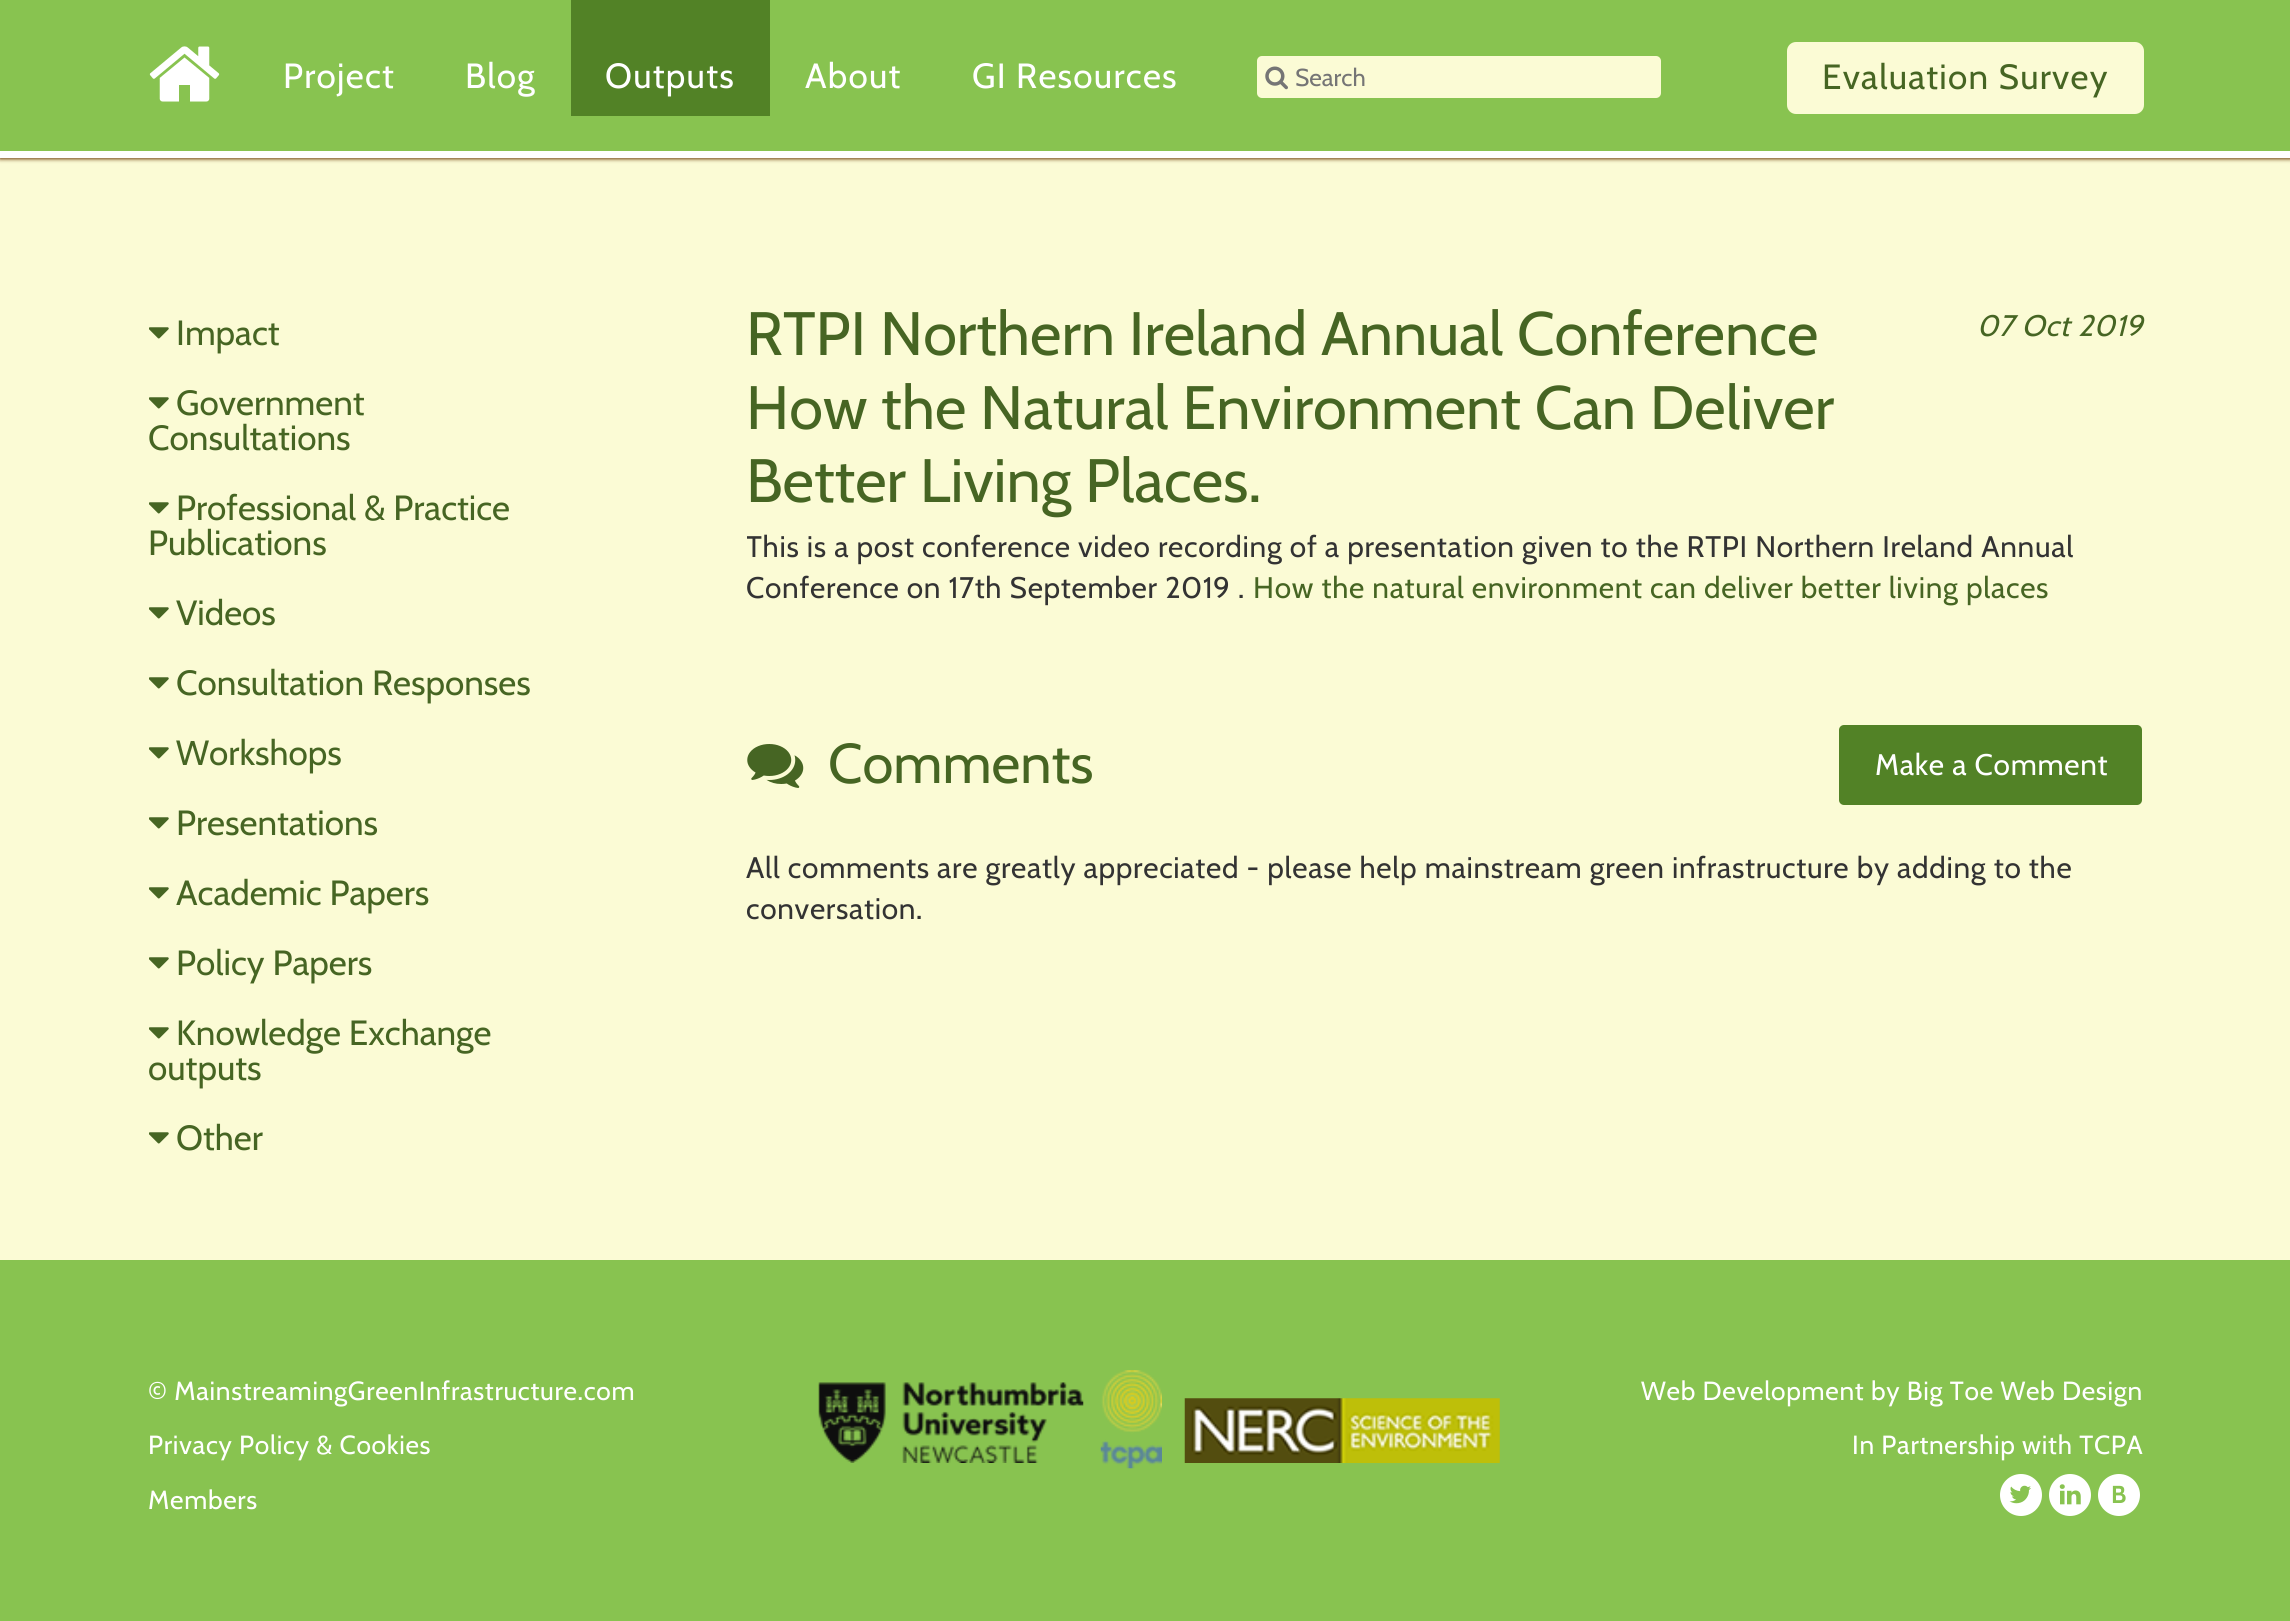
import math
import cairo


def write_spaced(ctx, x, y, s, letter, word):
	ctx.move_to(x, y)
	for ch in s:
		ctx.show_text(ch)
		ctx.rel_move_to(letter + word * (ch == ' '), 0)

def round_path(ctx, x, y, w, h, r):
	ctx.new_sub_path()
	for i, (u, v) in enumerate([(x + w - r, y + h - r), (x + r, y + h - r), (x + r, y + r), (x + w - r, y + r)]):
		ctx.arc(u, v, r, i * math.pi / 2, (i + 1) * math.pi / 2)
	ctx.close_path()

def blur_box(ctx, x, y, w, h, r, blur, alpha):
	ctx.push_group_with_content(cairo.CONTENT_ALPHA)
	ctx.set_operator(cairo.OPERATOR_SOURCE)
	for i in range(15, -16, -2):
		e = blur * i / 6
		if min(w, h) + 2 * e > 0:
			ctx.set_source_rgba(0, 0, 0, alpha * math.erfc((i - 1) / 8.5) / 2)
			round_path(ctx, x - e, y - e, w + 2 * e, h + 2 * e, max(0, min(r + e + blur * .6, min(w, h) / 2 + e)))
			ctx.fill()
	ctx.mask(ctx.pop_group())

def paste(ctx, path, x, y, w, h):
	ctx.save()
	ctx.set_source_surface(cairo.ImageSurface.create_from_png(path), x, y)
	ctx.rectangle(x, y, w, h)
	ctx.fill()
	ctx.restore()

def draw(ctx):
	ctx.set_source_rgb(0.533, 0.765, 0.314)
	ctx.paint()
	ctx.set_source_rgb(0.984, 0.984, 0.835)
	ctx.rectangle(0, 158, 2290, 1102)
	ctx.fill()
	ctx.set_source_rgb(0.4, 0.2, 0)
	blur_box(ctx, 0, 2, 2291, 157, 0, 2, 1)
	ctx.set_source_rgb(0.533, 0.765, 0.314)
	ctx.rectangle(0, 0, 2290, 151)
	ctx.fill()
	ctx.set_source_rgb(1, 1, 1)
	ctx.rectangle(0, 151, 2290, 7)
	ctx.fill()
	paste(ctx, 'media/1.png', 149, 46, 71, 56)
	ctx.select_font_face('Cabin')
	ctx.set_font_size(35)
	write_spaced(ctx, 283, 88, 'Project', 1.25, 0)
	write_spaced(ctx, 465, 88, 'Blog', 1.25, 0)
	ctx.set_source_rgb(0.322, 0.51, 0.149)
	ctx.rectangle(571, 0, 199, 116)
	ctx.fill()
	ctx.set_source_rgb(1, 1, 1)
	for x, y, s in [
		(605, 88, 'Outputs'),
		(805, 88, 'About'),
		(972, 88, 'GI Resources'),
	]:
		write_spaced(ctx, x, y, s, 1.25, 0)
	ctx.set_source_rgb(0.984, 0.984, 0.835)
	round_path(ctx, 1257, 56, 404, 42, 5)
	ctx.fill()
	paste(ctx, 'media/2.png', 1265, 66, 23, 24)
	ctx.set_font_size(24.5)
	ctx.set_source_rgb(0.459, 0.459, 0.459)
	ctx.move_to(1295, 86)
	ctx.show_text('Search')
	ctx.set_source_rgb(0.984, 0.984, 0.835)
	round_path(ctx, 1787, 42, 357, 72, 9)
	ctx.fill()
	ctx.set_font_size(35)
	ctx.set_source_rgb(0.275, 0.396, 0.137)
	write_spaced(ctx, 1822, 89, 'Evaluation Survey', 1.25, 0)
	paste(ctx, 'media/3.png', 149, 327, 20, 12)
	ctx.move_to(176, 345)
	ctx.show_text('Impact')
	paste(ctx, 'media/3.png', 149, 397, 20, 12)
	ctx.move_to(176, 415)
	ctx.show_text('Government')
	ctx.move_to(148, 450)
	ctx.show_text('Consultations')
	paste(ctx, 'media/3.png', 149, 502, 20, 12)
	ctx.move_to(176, 520)
	ctx.show_text('Professional & Practice')
	ctx.move_to(148, 555)
	ctx.show_text('Publications')
	paste(ctx, 'media/3.png', 149, 607, 20, 12)
	ctx.move_to(176, 625)
	ctx.show_text('Videos')
	paste(ctx, 'media/3.png', 149, 677, 20, 12)
	ctx.move_to(176, 695)
	ctx.show_text('Consultation Responses')
	paste(ctx, 'media/3.png', 149, 747, 20, 12)
	ctx.move_to(176, 765)
	ctx.show_text('Workshops')
	paste(ctx, 'media/3.png', 149, 817, 20, 12)
	ctx.move_to(176, 835)
	ctx.show_text('Presentations')
	paste(ctx, 'media/3.png', 149, 887, 20, 12)
	ctx.move_to(176, 905)
	ctx.show_text('Academic Papers')
	paste(ctx, 'media/3.png', 149, 957, 20, 12)
	ctx.move_to(176, 975)
	ctx.show_text('Policy Papers')
	paste(ctx, 'media/3.png', 149, 1027, 20, 12)
	ctx.move_to(176, 1045)
	ctx.show_text('Knowledge Exchange')
	ctx.move_to(148, 1080)
	ctx.show_text('outputs')
	paste(ctx, 'media/3.png', 149, 1132, 20, 12)
	ctx.move_to(176, 1150)
	ctx.show_text('Other')
	ctx.set_font_size(61.25)
	for x, y, s in [
		(746, 355, 'RTPI Northern Ireland Annual Conference'),
		(746, 429, 'How the Natural Environment Can Deliver'),
		(746, 502, 'Better Living Places.'),
	]:
		ctx.move_to(x, y)
		ctx.show_text(s)
	ctx.select_font_face('Cabin', cairo.FONT_SLANT_ITALIC)
	ctx.set_font_size(29.75)
	write_spaced(ctx, 1977, 336, '07 Oct 2019', 0.7, 0)
	ctx.save()
	ctx.rectangle(747, 228, 1397, 462)
	ctx.clip()
	ctx.select_font_face('Cabin')
	ctx.set_source_rgb(0.2, 0.2, 0.2)
	write_spaced(ctx, 746, 557, 'This is a post conference video recording of a presentation given to the RTPI Northern Ireland Annual', 0.7, 0)
	ctx.restore()
	ctx.select_font_face('Cabin')
	ctx.set_source_rgb(0.2, 0.2, 0.2)
	write_spaced(ctx, 746, 598, 'Conference on 17th September 2019 .', 0.7, 0)
	ctx.set_source_rgb(0.275, 0.396, 0.137)
	write_spaced(ctx, 1253, 598, 'How the natural environment can deliver better living places', 0.7, 0)
	paste(ctx, 'media/4.png', 747, 744, 57, 44)
	ctx.set_font_size(56)
	ctx.move_to(828, 783)
	ctx.show_text('Comments')
	ctx.set_source_rgb(0.322, 0.51, 0.149)
	round_path(ctx, 1839, 725, 303, 80, 5)
	ctx.fill()
	ctx.set_font_size(29.75)
	ctx.set_source_rgb(1, 1, 1)
	write_spaced(ctx, 1875, 775, 'Make a Comment', 0.7, 0)
	ctx.set_source_rgb(0.2, 0.2, 0.2)
	write_spaced(ctx, 746, 878, 'All comments are greatly appreciated - please help mainstream green infrastructure by adding to the', 0.7, 0)
	write_spaced(ctx, 746, 919, 'conversation.', 0.7, 0)
	ctx.set_font_size(26.25)
	ctx.set_source_rgb(1, 1, 1)
	for x, y, s in [
		(148, 1400, '© MainstreamingGreenInfrastructure.com'),
		(148, 1454, 'Privacy Policy & Cookies'),
		(148, 1509, 'Members'),
	]:
		write_spaced(ctx, x, y, s, 0.7, 0)
	paste(ctx, 'media/5.png', 818, 1382, 266, 81)
	paste(ctx, 'media/6.png', 1100, 1370, 62, 99)
	paste(ctx, 'media/7.png', 1184, 1398, 316, 65)
	write_spaced(ctx, 1641, 1400, 'Web Development by Big Toe Web Design', 0.7, 0)
	write_spaced(ctx, 1852, 1454, 'In Partnership with TCPA', 0.7, 0)
	ctx.new_path()
	ctx.arc(2021, 1495, 21, 0, 2 * math.pi)
	ctx.fill()
	paste(ctx, 'media/8.png', 2009, 1485, 22, 19)
	ctx.arc(2070, 1495, 21, 0, 2 * math.pi)
	ctx.fill()
	paste(ctx, 'media/9.png', 2059, 1484, 22, 21)
	ctx.arc(2119, 1495, 21, 0, 2 * math.pi)
	ctx.fill()
	ctx.select_font_face('Cabin', cairo.FONT_SLANT_NORMAL, cairo.FONT_WEIGHT_BOLD)
	ctx.set_font_size(24.5)
	ctx.set_source_rgb(0.533, 0.765, 0.314)
	ctx.move_to(2111, 1503)
	ctx.show_text('B')


surface = cairo.ImageSurface(cairo.FORMAT_RGB24, 2290, 1621)
ctx = cairo.Context(surface)
options = cairo.FontOptions()
options.set_hint_metrics(cairo.HINT_METRICS_OFF)
options.set_hint_style(cairo.HINT_STYLE_NONE)
ctx.set_font_options(options)
ctx.set_miter_limit(4)
draw(ctx)
surface.write_to_png('image.png')
